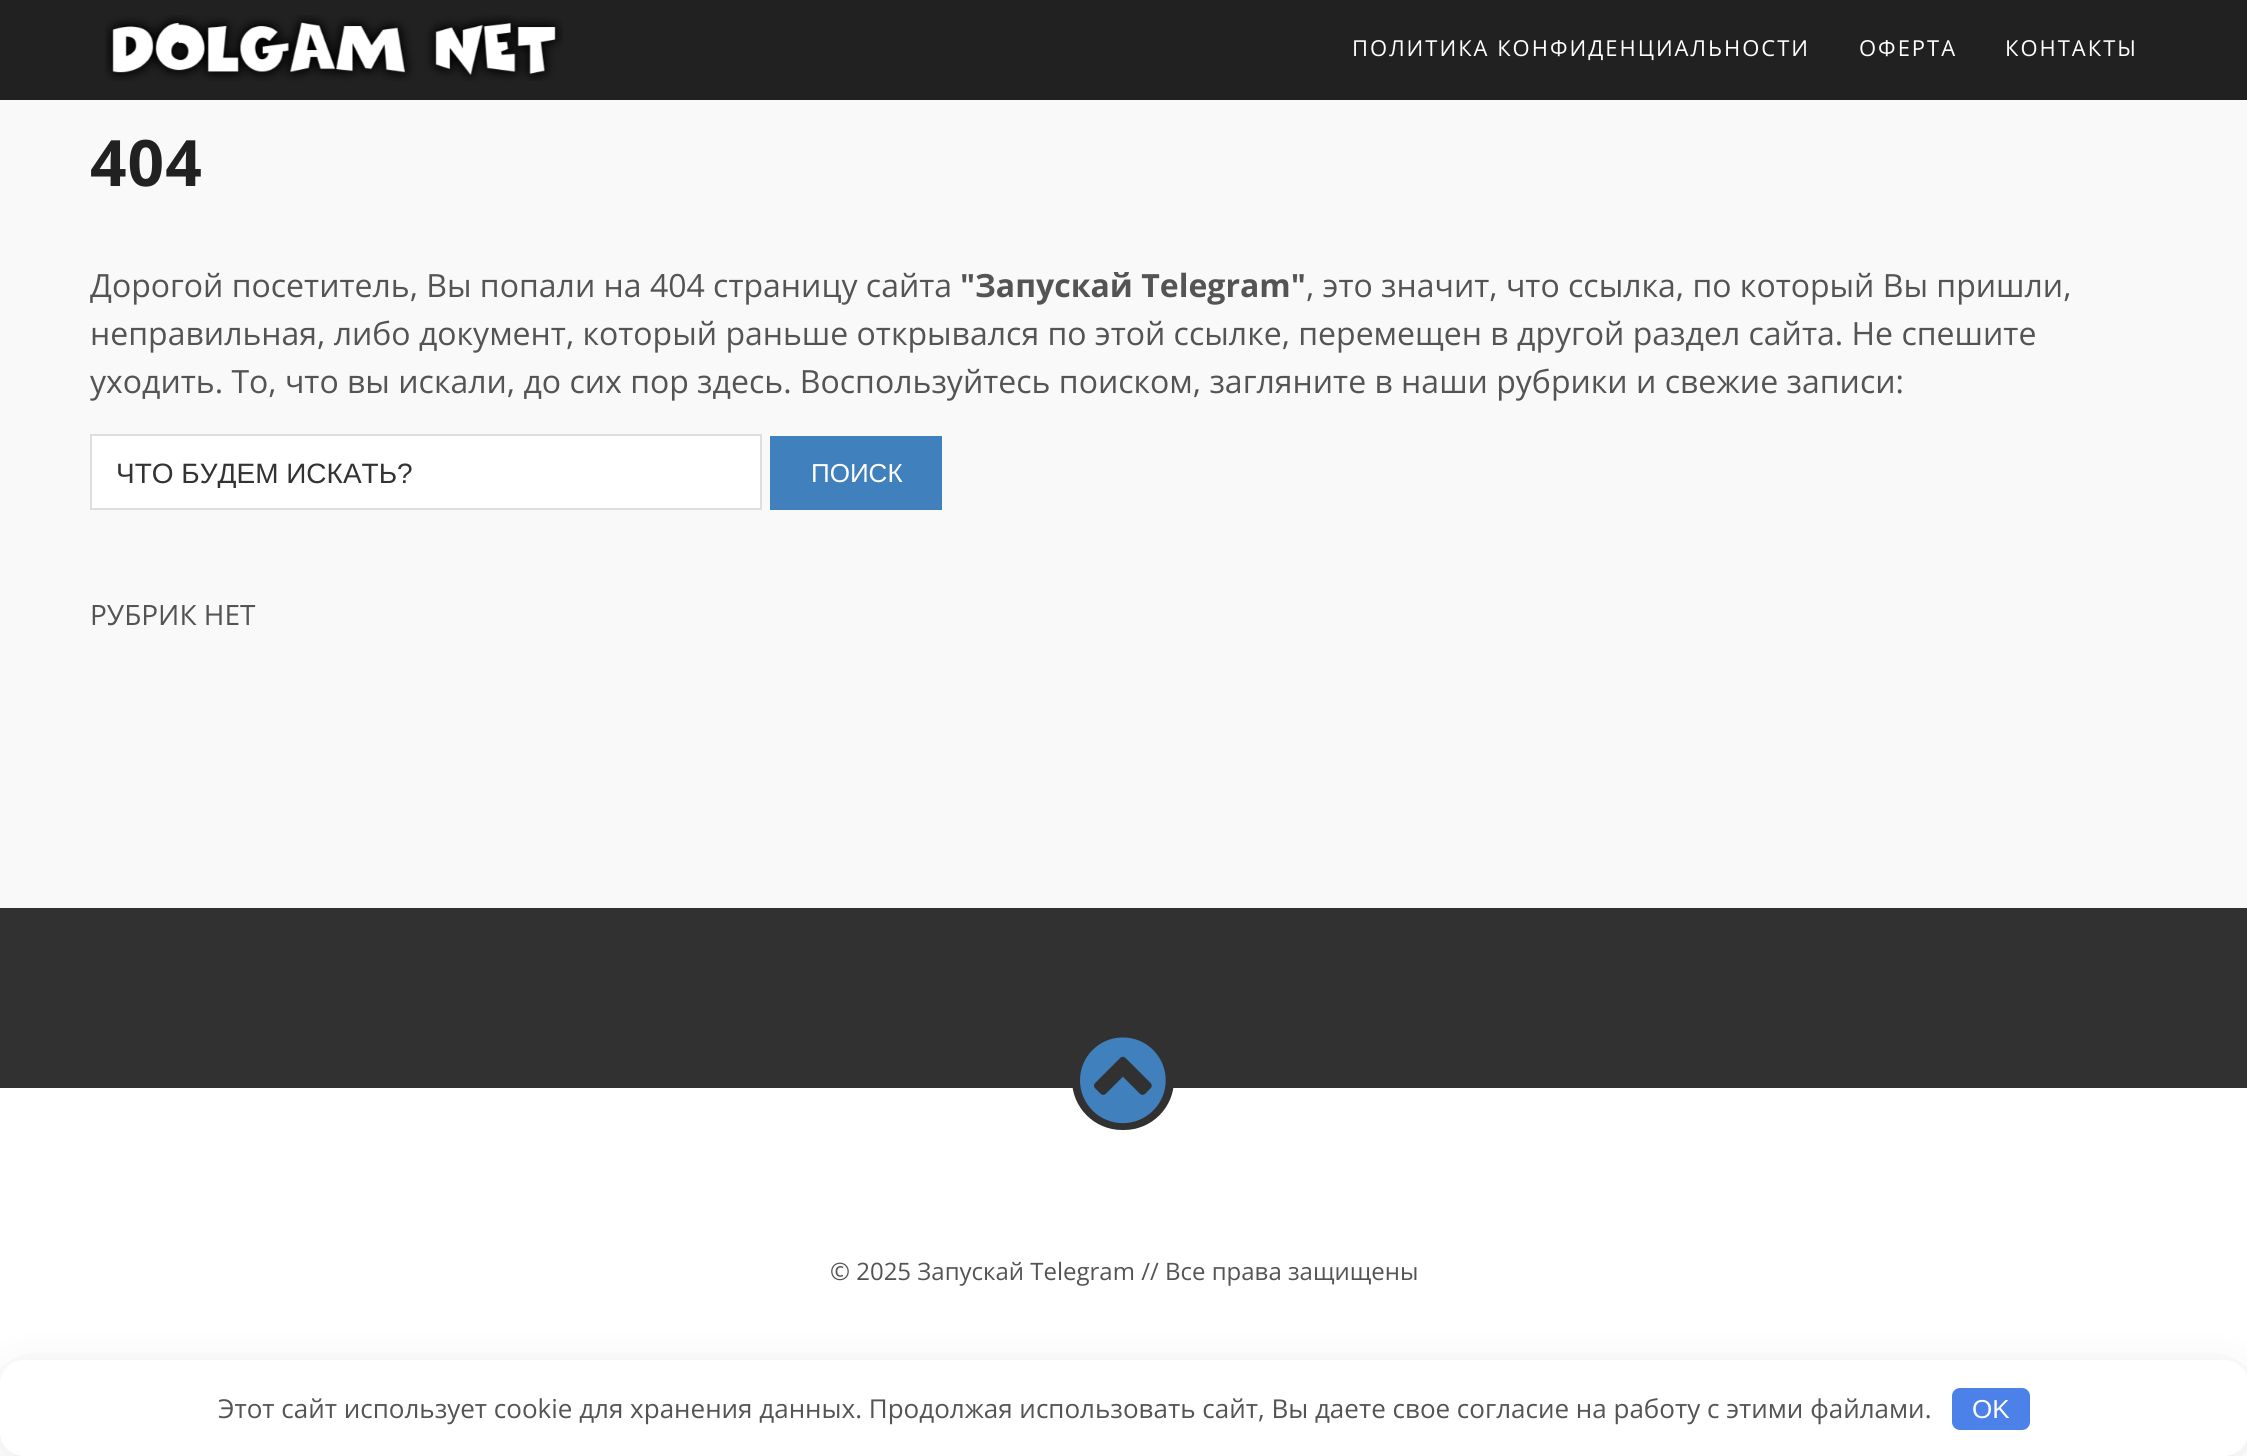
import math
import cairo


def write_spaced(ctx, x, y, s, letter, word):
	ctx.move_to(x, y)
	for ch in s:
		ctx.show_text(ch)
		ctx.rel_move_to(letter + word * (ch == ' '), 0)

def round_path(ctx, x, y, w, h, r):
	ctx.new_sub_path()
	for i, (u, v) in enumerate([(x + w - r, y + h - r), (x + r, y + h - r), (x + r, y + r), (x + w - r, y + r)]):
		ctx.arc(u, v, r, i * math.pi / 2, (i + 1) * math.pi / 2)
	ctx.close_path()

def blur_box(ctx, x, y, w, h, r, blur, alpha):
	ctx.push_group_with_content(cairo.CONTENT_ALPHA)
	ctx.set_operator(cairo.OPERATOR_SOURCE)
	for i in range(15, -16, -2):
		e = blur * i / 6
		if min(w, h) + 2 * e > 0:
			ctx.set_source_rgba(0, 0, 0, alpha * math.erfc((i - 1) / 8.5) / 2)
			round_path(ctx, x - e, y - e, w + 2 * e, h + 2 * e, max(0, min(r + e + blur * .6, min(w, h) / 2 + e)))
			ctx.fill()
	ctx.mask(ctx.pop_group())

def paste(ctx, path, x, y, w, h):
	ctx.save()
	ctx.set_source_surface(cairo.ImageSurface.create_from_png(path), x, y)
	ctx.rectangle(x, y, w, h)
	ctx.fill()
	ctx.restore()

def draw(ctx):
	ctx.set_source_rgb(1, 1, 1)
	ctx.paint()
	ctx.set_source_rgb(0.129, 0.129, 0.129)
	ctx.rectangle(0, 0, 2247, 100)
	ctx.fill()
	paste(ctx, 'media/1.png', 105, 15, 458, 66)
	ctx.select_font_face('Open Sans')
	ctx.set_font_size(22)
	ctx.set_source_rgb(1, 1, 1)
	for x, y, s in [
		(1352, 56, 'ПОЛИТИКА КОНФИДЕНЦИАЛЬНОСТИ'),
		(1859, 56, 'ОФЕРТА'),
		(2005, 56, 'КОНТАКТЫ'),
	]:
		write_spaced(ctx, x, y, s, 2, 0)
	ctx.set_source_rgb(0.976, 0.976, 0.976)
	ctx.rectangle(0, 100, 2247, 808)
	ctx.fill()
	ctx.select_font_face('Open Sans', cairo.FONT_SLANT_NORMAL, cairo.FONT_WEIGHT_BOLD)
	ctx.set_font_size(64)
	ctx.set_source_rgb(0.129, 0.129, 0.129)
	write_spaced(ctx, 90, 186, '404', 1, 0)
	ctx.select_font_face('Open Sans')
	ctx.set_font_size(32)
	ctx.set_source_rgb(0.329, 0.329, 0.329)
	ctx.move_to(90, 297)
	ctx.show_text('Дорогой посетитель, Вы попали на 404 страницу сайта')
	ctx.select_font_face('Open Sans', cairo.FONT_SLANT_NORMAL, cairo.FONT_WEIGHT_BOLD)
	ctx.move_to(960, 297)
	ctx.show_text('"Запускай Telegram"')
	ctx.select_font_face('Open Sans')
	for x, y, s in [
		(1306, 297, ', это значит, что ссылка, по который Вы пришли,'),
		(90, 345, 'неправильная, либо документ, который раньше открывался по этой ссылке, перемещен в другой раздел сайта. Не спешите'),
		(90, 393, 'уходить. То, что вы искали, до сих пор здесь. Воспользуйтесь поиском, загляните в наши рубрики и свежие записи:'),
	]:
		ctx.move_to(x, y)
		ctx.show_text(s)
	ctx.set_source_rgb(1, 1, 1)
	ctx.rectangle(91, 435, 670, 74)
	ctx.fill_preserve()
	ctx.set_source_rgb(0.871, 0.871, 0.871)
	ctx.stroke()
	ctx.save()
	ctx.rectangle(116, 456, 620, 32)
	ctx.clip()
	ctx.select_font_face('Liberation Sans')
	ctx.set_font_size(28)
	ctx.set_source_rgb(0.2, 0.2, 0.2)
	ctx.move_to(116, 483)
	ctx.show_text('ЧТО БУДЕМ ИСКАТЬ?')
	ctx.restore()
	ctx.set_source_rgb(0.251, 0.502, 0.737)
	ctx.rectangle(770, 436, 172, 74)
	ctx.fill()
	ctx.select_font_face('Liberation Sans')
	ctx.set_font_size(26)
	ctx.set_source_rgb(1, 1, 1)
	ctx.move_to(811, 482)
	ctx.show_text('ПОИСК')
	ctx.select_font_face('Open Sans')
	ctx.set_font_size(28)
	ctx.set_source_rgb(0.329, 0.329, 0.329)
	ctx.move_to(90, 625)
	ctx.show_text('РУБРИК НЕТ')
	ctx.set_source_rgb(0.192, 0.192, 0.192)
	ctx.rectangle(0, 908, 2247, 180)
	ctx.fill()
	round_path(ctx, 1072, 1030, 102, 100, 50)
	ctx.fill()
	paste(ctx, 'media/2.png', 1080, 1037, 86, 87)
	ctx.set_font_size(24)
	ctx.set_source_rgb(0.329, 0.329, 0.329)
	ctx.move_to(830, 1280)
	ctx.show_text('© 2025 Запускай Telegram // Все права защищены')
	ctx.set_source_rgb(0.161, 0.173, 0.22)
	blur_box(ctx, 10, 1376, 2228, 76, 14, 20, 0.2)
	ctx.set_source_rgb(1, 1, 1)
	round_path(ctx, 0, 1360, 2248, 96, 24)
	ctx.fill()
	ctx.set_font_size(26)
	ctx.set_source_rgb(0.329, 0.329, 0.329)
	ctx.move_to(218, 1418)
	ctx.show_text('Этот сайт использует cookie для хранения данных. Продолжая использовать сайт, Вы даете свое согласие на работу с этими файлами.')
	ctx.set_source_rgb(0.294, 0.506, 0.91)
	round_path(ctx, 1952, 1388, 78, 42, 8)
	ctx.fill()
	ctx.select_font_face('Liberation Sans')
	ctx.set_source_rgb(1, 1, 1)
	ctx.move_to(1972, 1418)
	ctx.show_text('OK')


surface = cairo.ImageSurface(cairo.FORMAT_RGB24, 2247, 1456)
ctx = cairo.Context(surface)
options = cairo.FontOptions()
options.set_hint_metrics(cairo.HINT_METRICS_OFF)
options.set_hint_style(cairo.HINT_STYLE_NONE)
ctx.set_font_options(options)
ctx.set_miter_limit(4)
draw(ctx)
surface.write_to_png('image.png')
